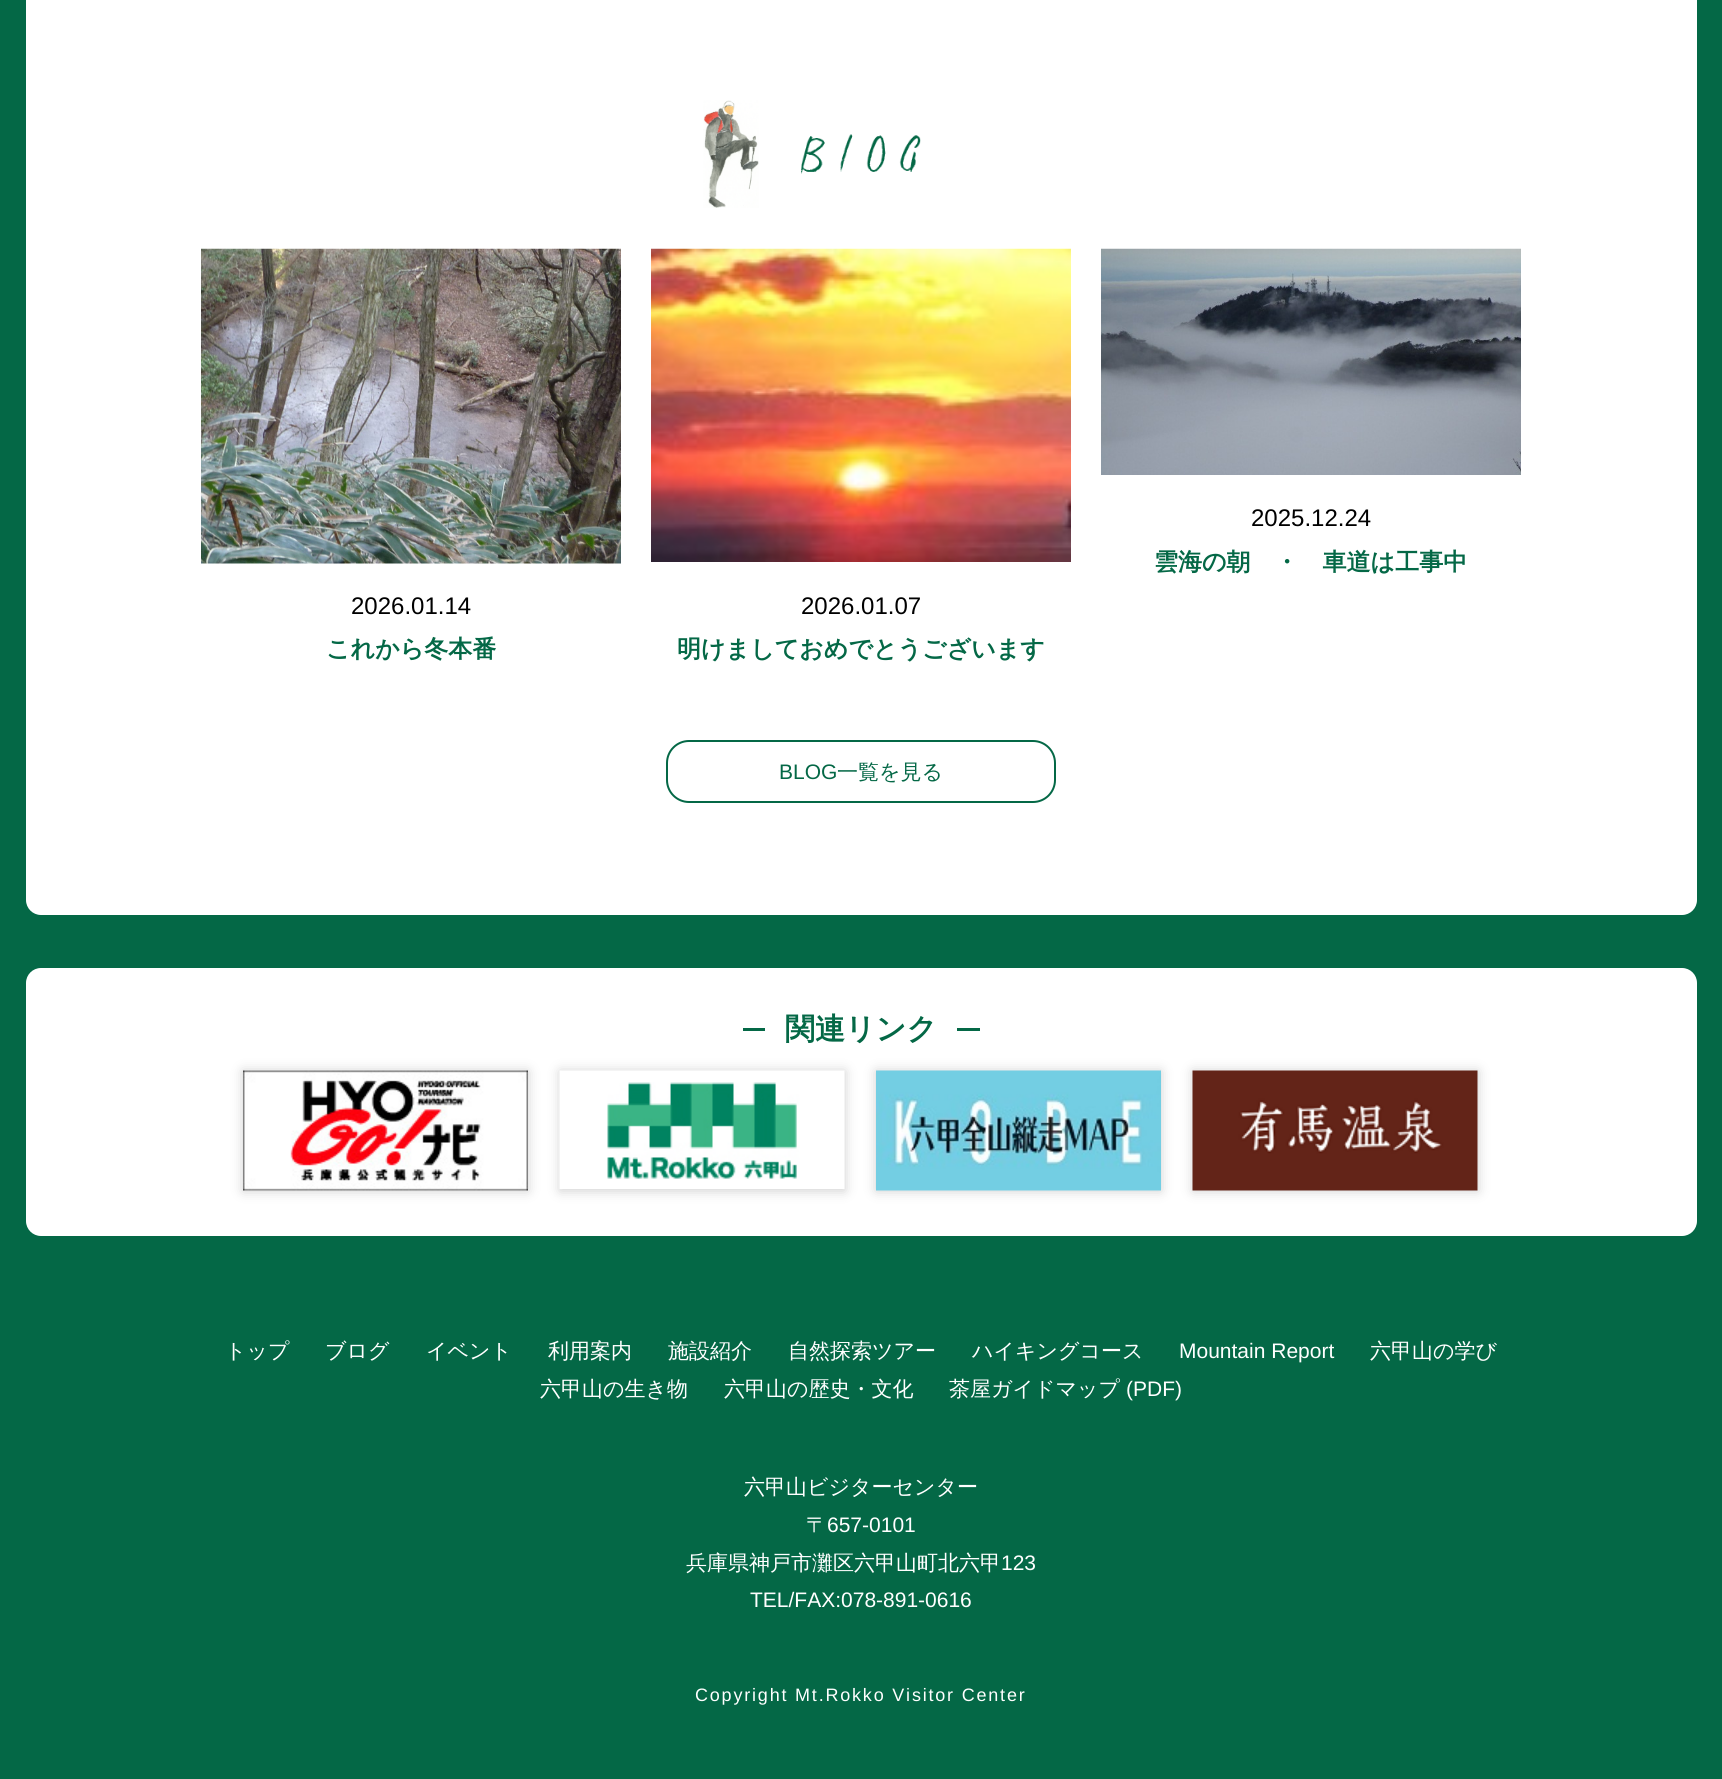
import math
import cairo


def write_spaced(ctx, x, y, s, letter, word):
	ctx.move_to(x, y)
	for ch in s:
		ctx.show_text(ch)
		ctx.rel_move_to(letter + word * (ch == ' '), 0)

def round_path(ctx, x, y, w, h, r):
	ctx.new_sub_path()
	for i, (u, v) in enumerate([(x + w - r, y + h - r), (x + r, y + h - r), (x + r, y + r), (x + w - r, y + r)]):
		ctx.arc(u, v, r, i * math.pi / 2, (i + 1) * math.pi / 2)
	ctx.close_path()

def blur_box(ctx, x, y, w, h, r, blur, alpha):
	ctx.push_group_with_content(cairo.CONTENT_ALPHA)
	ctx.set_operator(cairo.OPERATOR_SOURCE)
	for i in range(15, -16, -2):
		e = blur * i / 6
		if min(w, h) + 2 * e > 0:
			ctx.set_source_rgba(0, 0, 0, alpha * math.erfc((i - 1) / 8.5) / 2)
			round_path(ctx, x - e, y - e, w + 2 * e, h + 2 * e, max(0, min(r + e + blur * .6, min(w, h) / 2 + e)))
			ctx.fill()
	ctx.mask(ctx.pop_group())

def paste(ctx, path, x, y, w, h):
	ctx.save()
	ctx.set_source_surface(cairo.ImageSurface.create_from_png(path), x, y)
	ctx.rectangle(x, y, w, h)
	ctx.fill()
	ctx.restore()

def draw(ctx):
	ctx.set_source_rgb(0.016, 0.408, 0.275)
	ctx.paint()
	ctx.set_source_rgb(1, 1, 1)
	round_path(ctx, 26, -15, 1671, 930, 15)
	ctx.fill()
	paste(ctx, 'media/1.png', 703, 100, 56, 108)
	paste(ctx, 'media/2.png', 801, 134, 120, 40)
	paste(ctx, 'media/3.png', 1101, 248, 420, 227)
	ctx.select_font_face('Liberation Sans')
	ctx.set_font_size(24)
	ctx.set_source_rgb(0, 0, 0)
	ctx.move_to(1251, 526)
	ctx.show_text('2025.12.24')
	ctx.select_font_face('WenQuanYi Zen Hei', cairo.FONT_SLANT_NORMAL, cairo.FONT_WEIGHT_BOLD)
	ctx.set_source_rgb(0.016, 0.408, 0.275)
	ctx.move_to(1154, 570)
	ctx.show_text('雲海の朝　・　車道は工事中')
	paste(ctx, 'media/4.png', 201, 248, 420, 316)
	ctx.select_font_face('Liberation Sans')
	ctx.set_source_rgb(0, 0, 0)
	ctx.move_to(351, 614)
	ctx.show_text('2026.01.14')
	ctx.select_font_face('WenQuanYi Zen Hei', cairo.FONT_SLANT_NORMAL, cairo.FONT_WEIGHT_BOLD)
	ctx.set_source_rgb(0.016, 0.408, 0.275)
	ctx.move_to(326, 657)
	ctx.show_text('これから冬本番')
	paste(ctx, 'media/5.png', 651, 248, 420, 314)
	ctx.select_font_face('Liberation Sans')
	ctx.set_source_rgb(0, 0, 0)
	ctx.move_to(801, 614)
	ctx.show_text('2026.01.07')
	ctx.select_font_face('WenQuanYi Zen Hei', cairo.FONT_SLANT_NORMAL, cairo.FONT_WEIGHT_BOLD)
	ctx.set_source_rgb(0.016, 0.408, 0.275)
	ctx.move_to(677, 657)
	ctx.show_text('明けましておめでとうございます')
	round_path(ctx, 667, 741, 388, 61, 22)
	ctx.stroke()
	ctx.select_font_face('Liberation Sans')
	ctx.set_font_size(21)
	ctx.move_to(779, 779)
	ctx.show_text('BLOG')
	ctx.select_font_face('WenQuanYi Zen Hei Medium')
	ctx.move_to(837, 779)
	ctx.show_text('一覧を見る')
	ctx.set_source_rgb(1, 1, 1)
	round_path(ctx, 26, 968, 1671, 268, 15)
	ctx.fill()
	ctx.set_source_rgb(0.016, 0.408, 0.275)
	ctx.rectangle(743, 1028, 22, 3)
	ctx.fill()
	ctx.select_font_face('WenQuanYi Zen Hei', cairo.FONT_SLANT_NORMAL, cairo.FONT_WEIGHT_BOLD)
	ctx.set_font_size(30)
	ctx.move_to(785, 1039)
	ctx.show_text('関連リンク')
	ctx.rectangle(957, 1028, 23, 3)
	ctx.fill()
	ctx.set_source_rgb(0, 0, 0)
	blur_box(ctx, 243, 1071, 285, 120, 0, 6, 0.18)
	paste(ctx, 'media/6.png', 243, 1070, 285, 121)
	blur_box(ctx, 560, 1071, 285, 120, 0, 6, 0.18)
	paste(ctx, 'media/7.png', 559, 1070, 286, 119)
	blur_box(ctx, 876, 1071, 285, 120, 0, 6, 0.18)
	paste(ctx, 'media/8.png', 876, 1070, 285, 121)
	blur_box(ctx, 1193, 1071, 285, 120, 0, 6, 0.18)
	paste(ctx, 'media/9.png', 1192, 1070, 286, 121)
	ctx.select_font_face('WenQuanYi Zen Hei Medium')
	ctx.set_font_size(21)
	ctx.set_source_rgb(1, 1, 1)
	for x, y, s in [
		(225, 1358, 'トップ'),
		(325, 1358, 'ブログ'),
		(426, 1358, 'イベント'),
		(548, 1358, '利用案内'),
		(668, 1358, '施設紹介'),
		(788, 1358, '自然探索ツアー'),
		(972, 1358, 'ハイキングコース'),
	]:
		ctx.move_to(x, y)
		ctx.show_text(s)
	ctx.select_font_face('Liberation Sans')
	ctx.move_to(1179, 1358)
	ctx.show_text('Mountain Report')
	ctx.select_font_face('WenQuanYi Zen Hei Medium')
	for x, y, s in [
		(1370, 1358, '六甲山の学び'),
		(540, 1396, '六甲山の生き物'),
		(724, 1396, '六甲山の歴史・文化'),
		(949, 1396, '茶屋ガイドマップ'),
	]:
		ctx.move_to(x, y)
		ctx.show_text(s)
	ctx.select_font_face('Liberation Sans')
	ctx.move_to(1126, 1396)
	ctx.show_text('(PDF)')
	ctx.select_font_face('WenQuanYi Zen Hei Medium')
	ctx.move_to(744, 1494)
	ctx.show_text('六甲山ビジターセンター')
	ctx.move_to(806, 1532)
	ctx.show_text('〒')
	ctx.select_font_face('Liberation Sans')
	ctx.move_to(827, 1532)
	ctx.show_text('657-0101')
	ctx.select_font_face('WenQuanYi Zen Hei Medium')
	ctx.move_to(686, 1570)
	ctx.show_text('兵庫県神戸市灘区六甲山町北六甲')
	ctx.select_font_face('Liberation Sans')
	ctx.move_to(1001, 1570)
	ctx.show_text('123')
	ctx.move_to(750, 1607)
	ctx.show_text('TEL/FAX:078-891-0616')
	ctx.set_font_size(18)
	write_spaced(ctx, 695, 1701, 'Copyright Mt.Rokko Visitor Center', 1.8, 0)


surface = cairo.ImageSurface(cairo.FORMAT_RGB24, 1722, 1779)
ctx = cairo.Context(surface)
options = cairo.FontOptions()
options.set_hint_metrics(cairo.HINT_METRICS_OFF)
options.set_hint_style(cairo.HINT_STYLE_NONE)
ctx.set_font_options(options)
ctx.set_miter_limit(4)
draw(ctx)
surface.write_to_png('image.png')
